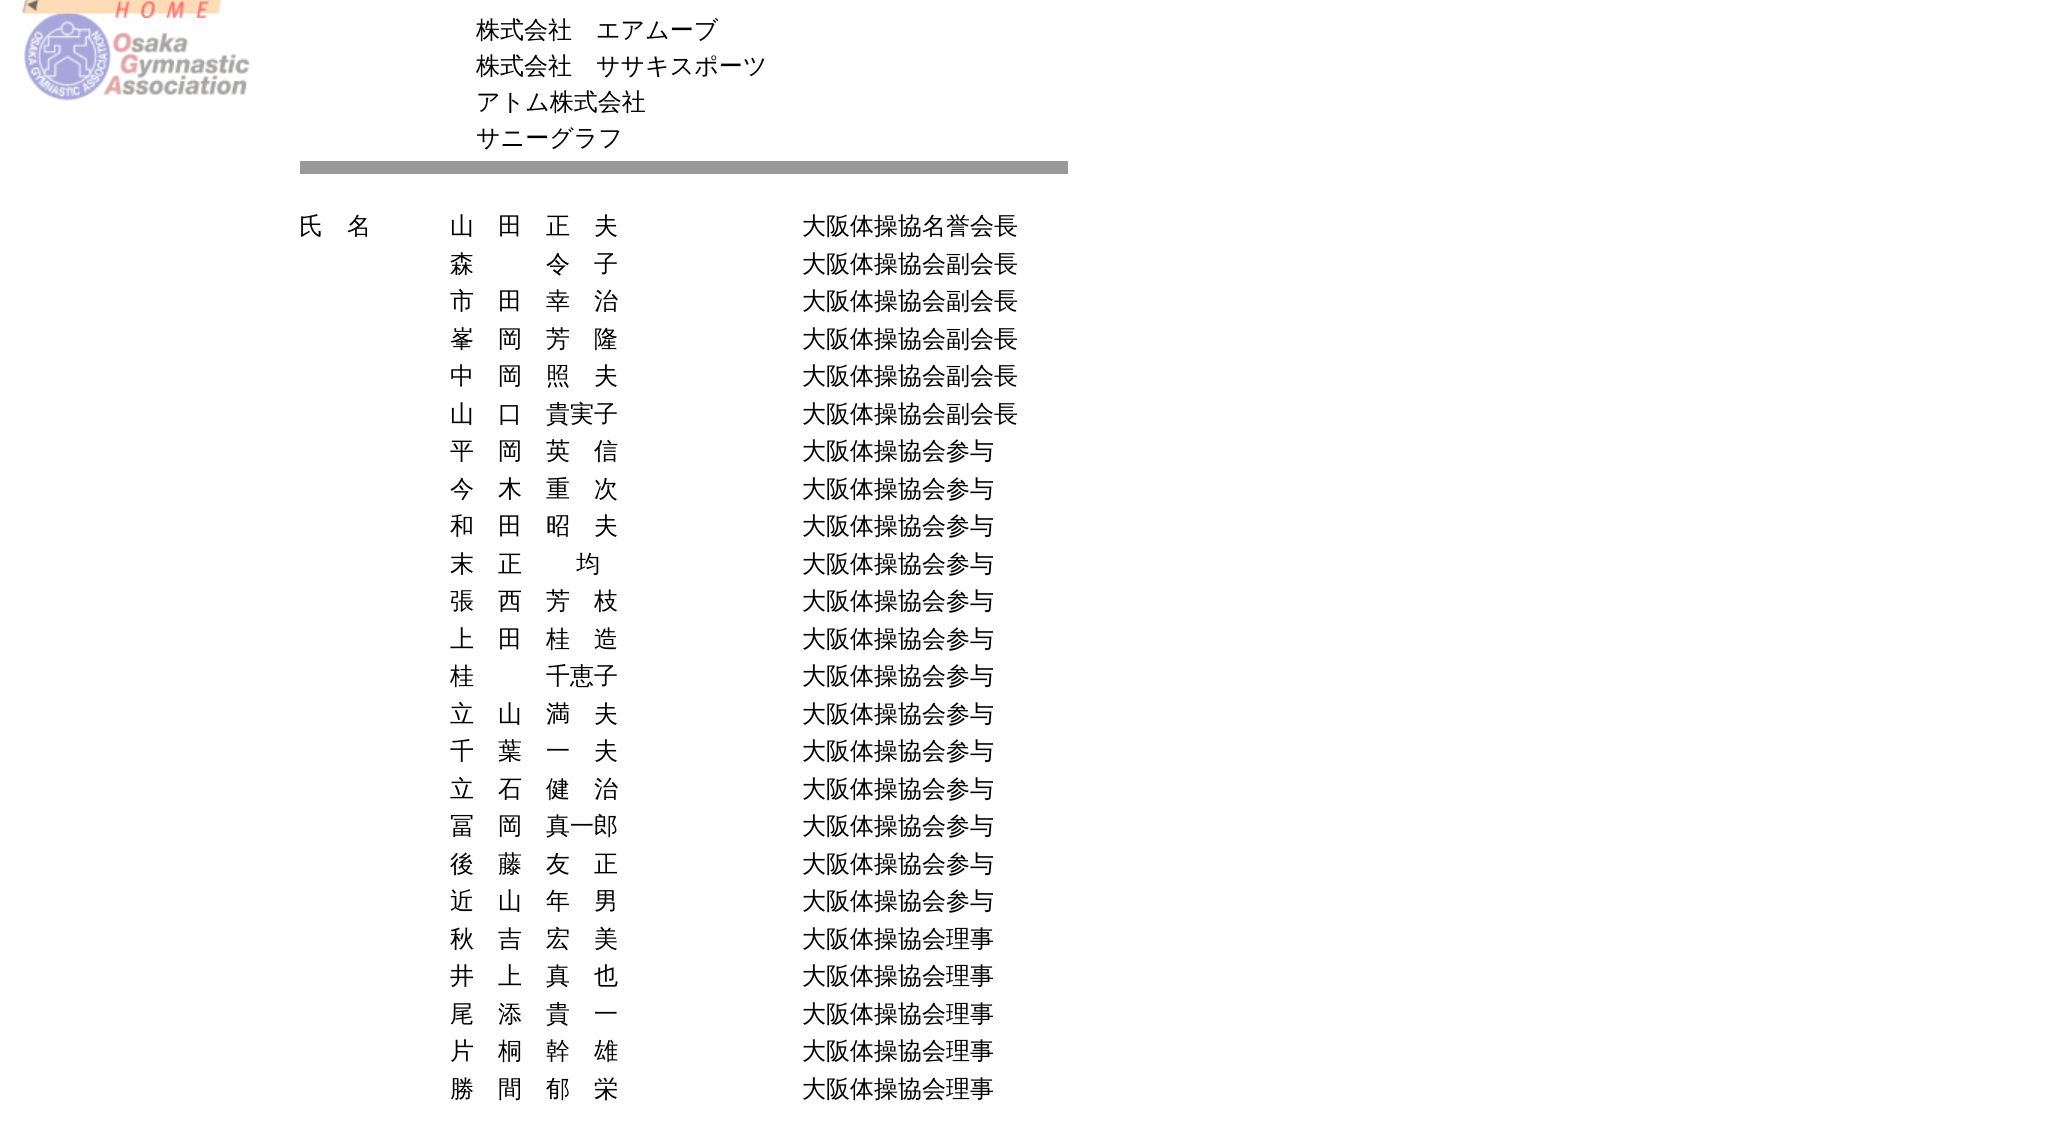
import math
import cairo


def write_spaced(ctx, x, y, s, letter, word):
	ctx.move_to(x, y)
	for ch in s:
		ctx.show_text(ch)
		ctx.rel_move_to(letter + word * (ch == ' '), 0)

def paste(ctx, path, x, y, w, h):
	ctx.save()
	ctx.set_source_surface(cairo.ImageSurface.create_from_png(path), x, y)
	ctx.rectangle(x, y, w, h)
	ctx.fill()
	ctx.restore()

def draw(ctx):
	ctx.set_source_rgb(1, 1, 1)
	ctx.paint()
	paste(ctx, 'media/1.png', 23, 13, 227, 88)
	paste(ctx, 'media/2.png', 22, 0, 200, 18)
	ctx.select_font_face('WenQuanYi Zen Hei Medium')
	ctx.set_font_size(24)
	ctx.set_source_rgb(0, 0, 0)
	for x, y, s in [
		(476, 38, '株式会社　エアムーブ'),
		(476, 74, '株式会社　ササキスポーツ'),
		(476, 110, 'アトム株式会社'),
		(476, 146, 'サニーグラフ'),
	]:
		ctx.move_to(x, y)
		ctx.show_text(s)
	ctx.set_source_rgb(0.6, 0.6, 0.6)
	ctx.rectangle(300, 161, 768, 13)
	ctx.fill()
	ctx.set_source_rgb(0, 0, 0)
	for x, y, s in [
		(299, 234, '氏　名'),
		(450, 234, '山　田　正　夫'),
		(802, 234, '大阪体操協名誉会長'),
		(450, 272, '森　　　令　子'),
		(802, 272, '大阪体操協会副会長'),
		(450, 309, '市　田　幸　治'),
		(802, 309, '大阪体操協会副会長'),
		(450, 347, '峯　岡　芳　隆'),
		(802, 347, '大阪体操協会副会長'),
		(450, 384, '中　岡　照　夫'),
		(802, 384, '大阪体操協会副会長'),
		(450, 422, '山　口　貴実子'),
		(802, 422, '大阪体操協会副会長'),
		(450, 459, '平　岡　英　信'),
		(802, 459, '大阪体操協会参与'),
		(450, 497, '今　木　重　次'),
		(802, 497, '大阪体操協会参与'),
		(450, 534, '和　田　昭　夫'),
		(802, 534, '大阪体操協会参与'),
	]:
		ctx.move_to(x, y)
		ctx.show_text(s)
	write_spaced(ctx, 450, 572, '末　正　　 均', 0, -1)
	for x, y, s in [
		(802, 572, '大阪体操協会参与'),
		(450, 609, '張　西　芳　枝'),
		(802, 609, '大阪体操協会参与'),
		(450, 647, '上　田　桂　造'),
		(802, 647, '大阪体操協会参与'),
		(450, 684, '桂　　　千恵子'),
		(802, 684, '大阪体操協会参与'),
		(450, 722, '立　山　満　夫'),
		(802, 722, '大阪体操協会参与'),
		(450, 759, '千　葉　一　夫'),
		(802, 759, '大阪体操協会参与'),
		(450, 797, '立　石　健　治'),
		(802, 797, '大阪体操協会参与'),
		(450, 834, '冨　岡　真一郎'),
		(802, 834, '大阪体操協会参与'),
		(450, 872, '後　藤　友　正'),
		(802, 872, '大阪体操協会参与'),
		(450, 909, '近　山　年　男'),
		(802, 909, '大阪体操協会参与'),
		(450, 947, '秋　吉　宏　美'),
		(802, 947, '大阪体操協会理事'),
		(450, 984, '井　上　真　也'),
		(802, 984, '大阪体操協会理事'),
		(450, 1022, '尾　添　貴　一'),
		(802, 1022, '大阪体操協会理事'),
		(450, 1059, '片　桐　幹　雄'),
		(802, 1059, '大阪体操協会理事'),
		(450, 1097, '勝　間　郁　栄'),
		(802, 1097, '大阪体操協会理事'),
	]:
		ctx.move_to(x, y)
		ctx.show_text(s)


surface = cairo.ImageSurface(cairo.FORMAT_RGB24, 2063, 1126)
ctx = cairo.Context(surface)
options = cairo.FontOptions()
options.set_hint_metrics(cairo.HINT_METRICS_OFF)
options.set_hint_style(cairo.HINT_STYLE_NONE)
ctx.set_font_options(options)
ctx.set_miter_limit(4)
draw(ctx)
surface.write_to_png('image.png')
